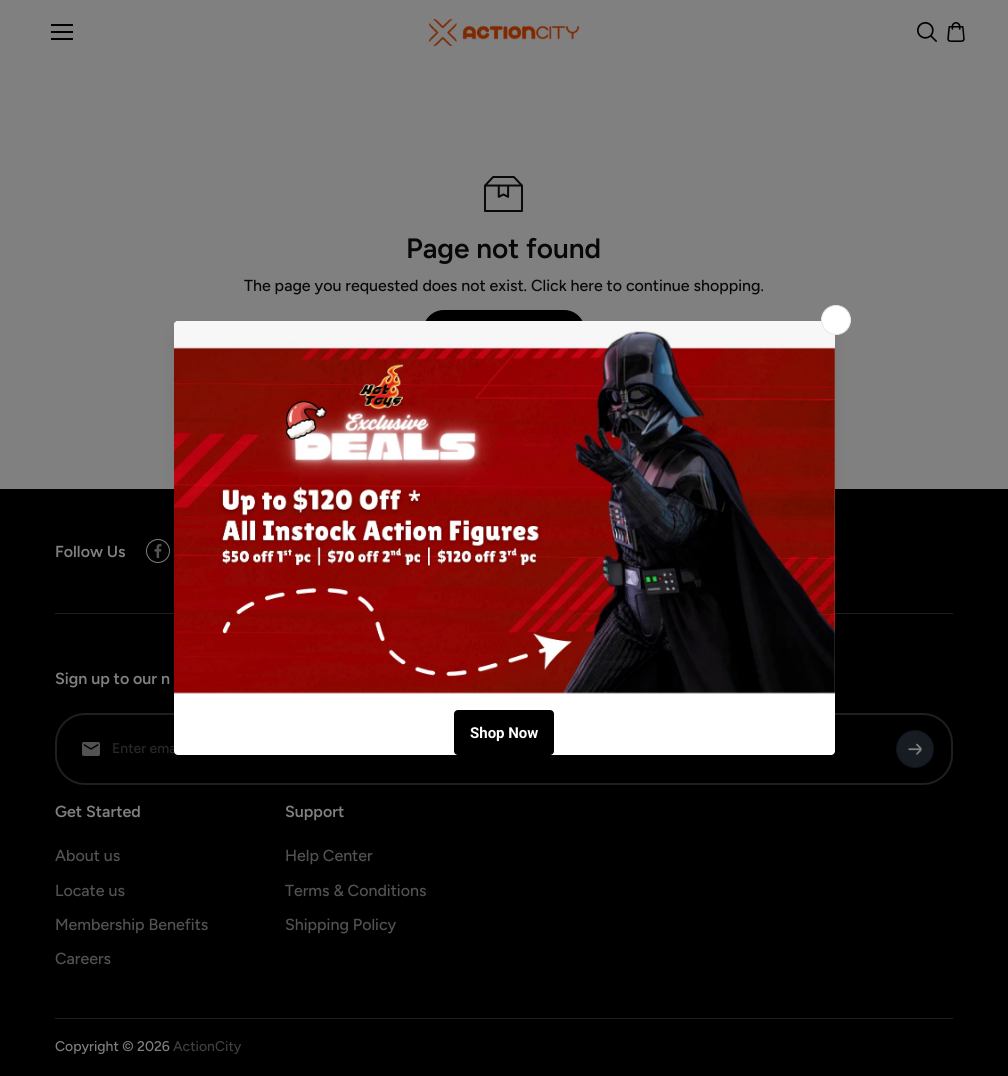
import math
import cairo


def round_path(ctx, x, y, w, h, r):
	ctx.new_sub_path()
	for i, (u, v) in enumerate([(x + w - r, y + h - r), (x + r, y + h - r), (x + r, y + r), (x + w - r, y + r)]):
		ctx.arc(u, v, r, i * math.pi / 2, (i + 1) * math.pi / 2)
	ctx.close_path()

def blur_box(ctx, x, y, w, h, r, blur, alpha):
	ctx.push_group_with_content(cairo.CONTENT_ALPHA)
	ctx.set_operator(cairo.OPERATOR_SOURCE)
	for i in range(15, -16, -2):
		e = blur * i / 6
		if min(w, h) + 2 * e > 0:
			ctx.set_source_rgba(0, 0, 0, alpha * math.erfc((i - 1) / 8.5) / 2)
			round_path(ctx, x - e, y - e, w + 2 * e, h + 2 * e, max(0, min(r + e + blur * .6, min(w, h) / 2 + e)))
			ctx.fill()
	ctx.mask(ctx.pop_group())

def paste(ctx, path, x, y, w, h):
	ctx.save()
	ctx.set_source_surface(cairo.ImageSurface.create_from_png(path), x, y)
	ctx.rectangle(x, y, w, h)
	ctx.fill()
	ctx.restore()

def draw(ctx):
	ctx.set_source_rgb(0.502, 0.502, 0.502)
	ctx.paint()
	ctx.set_source_rgb(0, 0, 0)
	ctx.rectangle(51, 24, 22, 2)
	ctx.rectangle(51, 31, 22, 2)
	ctx.rectangle(51, 38, 22, 2)
	ctx.fill()
	paste(ctx, 'media/1.png', 429, 19, 150, 27)
	paste(ctx, 'media/2.png', 917, 22, 20, 20)
	paste(ctx, 'media/3.png', 947, 22, 18, 20)
	paste(ctx, 'media/4.png', 484, 176, 39, 36)
	ctx.select_font_face('Figtree SemiBold')
	ctx.set_font_size(28)
	ctx.set_source_rgb(0.035, 0.035, 0.035)
	ctx.move_to(406, 258)
	ctx.show_text('Page not found')
	ctx.select_font_face('Figtree Medium')
	ctx.set_font_size(16)
	ctx.move_to(244, 291)
	ctx.show_text('The page you requested does not exist. Click here to continue shopping.')
	ctx.set_source_rgb(0, 0, 0)
	round_path(ctx, 423.5, 310.5, 161, 41, 20.5)
	ctx.fill_preserve()
	ctx.set_line_width(1)
	ctx.stroke()
	ctx.rectangle(0, 489, 1008, 587)
	ctx.fill()
	ctx.set_source_rgb(0.106, 0.125, 0.141)
	ctx.rectangle(55, 613, 898, 1)
	ctx.fill()
	ctx.select_font_face('Figtree SemiBold')
	ctx.set_source_rgb(0.502, 0.502, 0.502)
	ctx.move_to(55, 557)
	ctx.show_text('Follow Us')
	ctx.new_path()
	ctx.arc(158, 551, 11.5, 0, 2 * math.pi)
	ctx.stroke()
	paste(ctx, 'media/5.png', 154, 544, 8, 14)
	ctx.move_to(55, 684)
	ctx.show_text('Sign up to our n')
	round_path(ctx, 56, 714, 896, 70, 29)
	ctx.set_source_rgb(0.106, 0.125, 0.141)
	ctx.set_line_width(2)
	ctx.stroke()
	paste(ctx, 'media/6.png', 82, 742, 18, 14)
	ctx.select_font_face('Figtree Medium')
	ctx.set_font_size(14)
	ctx.set_source_rgb(0.161, 0.161, 0.161)
	ctx.move_to(112, 753)
	ctx.show_text('Enter ema')
	ctx.set_source_rgb(0.086, 0.11, 0.133)
	ctx.new_path()
	ctx.arc(915, 749, 18.5, 0, 2 * math.pi)
	ctx.fill_preserve()
	ctx.set_source_rgb(0.059, 0.078, 0.098)
	ctx.set_line_width(1)
	ctx.stroke()
	paste(ctx, 'media/7.png', 908, 743, 14, 12)
	ctx.select_font_face('Figtree SemiBold')
	ctx.set_font_size(16)
	ctx.set_source_rgb(0.502, 0.502, 0.502)
	ctx.move_to(55, 817)
	ctx.show_text('Get Started')
	ctx.select_font_face('Figtree Medium')
	ctx.set_source_rgb(0.325, 0.325, 0.325)
	for x, y, s in [
		(55, 861, 'About us'),
		(55, 896, 'Locate us'),
		(55, 930, 'Membership Benefits'),
		(55, 964, 'Careers'),
	]:
		ctx.move_to(x, y)
		ctx.show_text(s)
	ctx.select_font_face('Figtree SemiBold')
	ctx.set_source_rgb(0.502, 0.502, 0.502)
	ctx.move_to(285, 817)
	ctx.show_text('Support')
	ctx.select_font_face('Figtree Medium')
	ctx.set_source_rgb(0.325, 0.325, 0.325)
	for x, y, s in [
		(285, 861, 'Help Center'),
		(285, 896, 'Terms & Conditions'),
		(285, 930, 'Shipping Policy'),
	]:
		ctx.move_to(x, y)
		ctx.show_text(s)
	ctx.set_source_rgb(0.106, 0.125, 0.141)
	ctx.rectangle(55, 1018, 898, 1)
	ctx.fill()
	ctx.set_font_size(14)
	ctx.set_source_rgb(0.502, 0.502, 0.502)
	ctx.move_to(55, 1051)
	ctx.show_text('Copyright © 2026')
	ctx.set_source_rgb(0.247, 0.247, 0.247)
	ctx.move_to(173, 1051)
	ctx.show_text('ActionCity')
	ctx.set_source_rgb(0, 0, 0)
	blur_box(ctx, 177, 334, 655, 428, 1, 7.5, 0.1)
	ctx.set_source_rgb(1, 1, 1)
	round_path(ctx, 174, 321, 661, 434, 4)
	ctx.fill()
	paste(ctx, 'media/8.png', 174, 321, 661, 373)
	ctx.arc(836, 320, 14.5, 0, 2 * math.pi)
	ctx.fill_preserve()
	ctx.set_source_rgb(0.886, 0.91, 0.941)
	ctx.stroke()
	ctx.set_source_rgb(0, 0, 0)
	round_path(ctx, 454, 710, 100, 45, 4)
	ctx.fill()
	ctx.select_font_face('Roboto', cairo.FONT_SLANT_NORMAL, cairo.FONT_WEIGHT_BOLD)
	ctx.set_font_size(15)
	ctx.set_source_rgb(1, 1, 1)
	ctx.move_to(470, 738)
	ctx.show_text('Shop Now')


surface = cairo.ImageSurface(cairo.FORMAT_RGB24, 1008, 1076)
ctx = cairo.Context(surface)
options = cairo.FontOptions()
options.set_hint_metrics(cairo.HINT_METRICS_OFF)
options.set_hint_style(cairo.HINT_STYLE_NONE)
ctx.set_font_options(options)
ctx.set_miter_limit(4)
draw(ctx)
surface.write_to_png('image.png')
